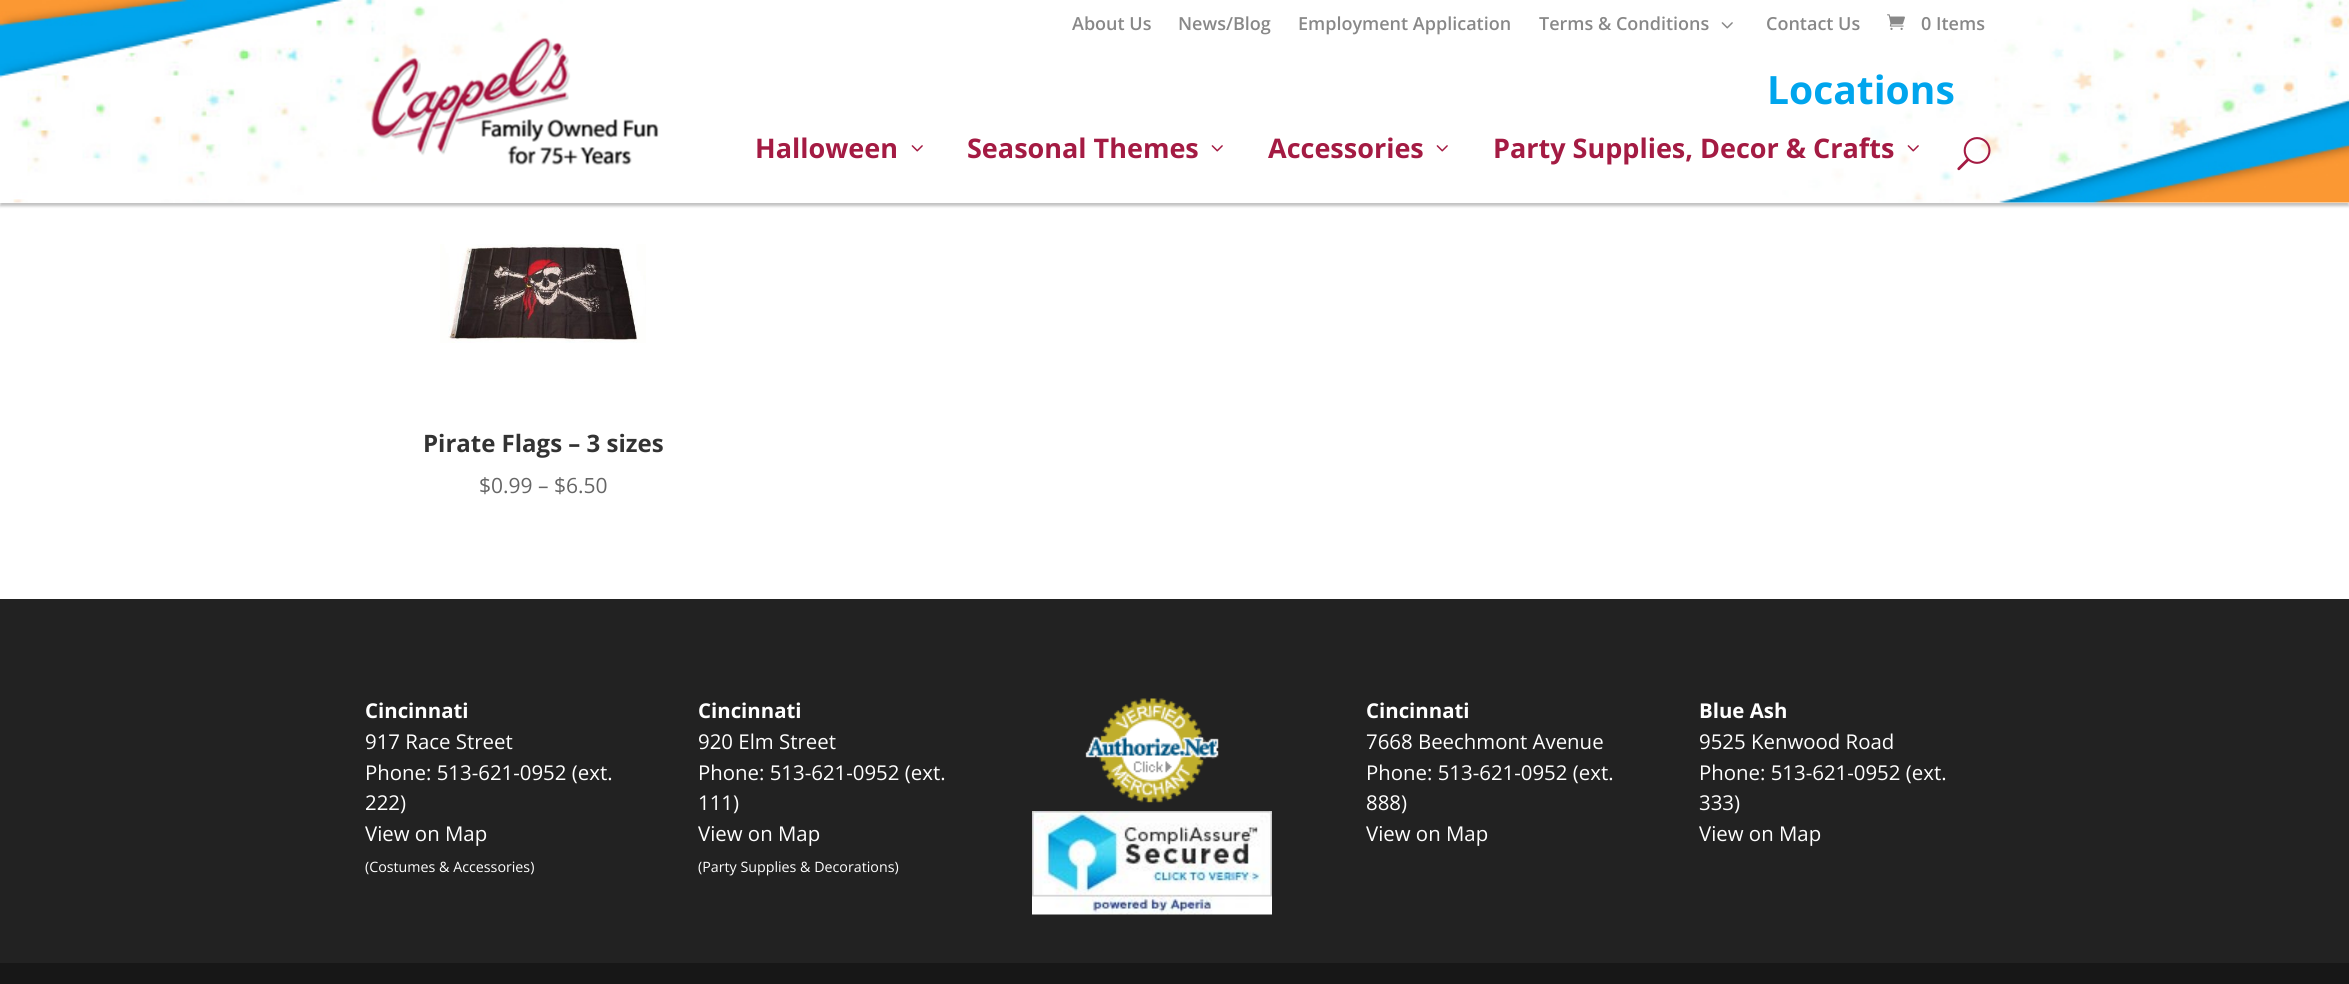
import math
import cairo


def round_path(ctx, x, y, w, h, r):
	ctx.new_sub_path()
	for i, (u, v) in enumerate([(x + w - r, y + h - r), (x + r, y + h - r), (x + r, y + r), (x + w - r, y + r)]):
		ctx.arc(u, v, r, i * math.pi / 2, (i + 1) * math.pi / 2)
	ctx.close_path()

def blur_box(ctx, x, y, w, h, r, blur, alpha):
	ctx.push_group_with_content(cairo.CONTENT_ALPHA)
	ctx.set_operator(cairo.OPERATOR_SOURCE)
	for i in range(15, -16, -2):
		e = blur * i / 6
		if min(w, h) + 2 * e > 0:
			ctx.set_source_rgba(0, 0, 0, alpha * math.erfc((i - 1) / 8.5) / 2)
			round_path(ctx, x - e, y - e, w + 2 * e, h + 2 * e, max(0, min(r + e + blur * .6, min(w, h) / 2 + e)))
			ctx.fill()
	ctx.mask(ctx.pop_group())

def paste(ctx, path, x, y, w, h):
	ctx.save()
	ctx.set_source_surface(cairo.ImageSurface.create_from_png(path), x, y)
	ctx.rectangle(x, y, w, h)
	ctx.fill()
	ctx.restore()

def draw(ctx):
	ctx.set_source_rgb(1, 1, 1)
	ctx.paint()
	paste(ctx, 'media/1.png', 0, 0, 2349, 203)
	ctx.select_font_face('Open Sans SemiBold')
	ctx.set_font_size(18)
	ctx.set_source_rgb(0.533, 0.533, 0.533)
	for x, y, s in [
		(1072, 30, 'About Us'),
		(1178, 30, 'News/Blog'),
		(1298, 30, 'Employment Application'),
		(1539, 30, 'Terms & Conditions'),
	]:
		ctx.move_to(x, y)
		ctx.show_text(s)
	paste(ctx, 'media/2.png', 1721, 22, 12, 7)
	ctx.move_to(1766, 30)
	ctx.show_text('Contact Us')
	paste(ctx, 'media/3.png', 1887, 14, 18, 16)
	ctx.move_to(1921, 30)
	ctx.show_text('0 Items')
	ctx.save()
	ctx.set_fill_rule(cairo.FILL_RULE_EVEN_ODD)
	ctx.new_path()
	ctx.move_to(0, 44)
	ctx.line_to(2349, 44)
	ctx.line_to(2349, 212)
	ctx.line_to(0, 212)
	ctx.close_path()
	ctx.move_to(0, 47)
	ctx.line_to(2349, 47)
	ctx.line_to(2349, 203)
	ctx.line_to(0, 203)
	ctx.close_path()
	ctx.clip()
	ctx.set_source_rgb(0, 0, 0)
	blur_box(ctx, 0, 50, 2349, 156, 0, 1.5, 0.25)
	ctx.restore()
	paste(ctx, 'media/4.png', 371, 37, 288, 128)
	ctx.select_font_face('Open Sans', cairo.FONT_SLANT_NORMAL, cairo.FONT_WEIGHT_BOLD)
	ctx.set_font_size(39)
	ctx.set_source_rgb(0, 0.647, 0.929)
	ctx.move_to(1767, 104)
	ctx.show_text('Locations')
	ctx.set_font_size(27)
	ctx.set_source_rgb(0.643, 0.106, 0.263)
	ctx.move_to(755, 158)
	ctx.show_text('Halloween')
	paste(ctx, 'media/5.png', 911, 145, 12, 7)
	ctx.move_to(967, 158)
	ctx.show_text('Seasonal Themes')
	paste(ctx, 'media/5.png', 1211, 145, 12, 7)
	ctx.move_to(1268, 158)
	ctx.show_text('Accessories')
	paste(ctx, 'media/5.png', 1436, 145, 12, 7)
	ctx.move_to(1493, 158)
	ctx.show_text('Party Supplies, Decor & Crafts')
	paste(ctx, 'media/6.png', 1907, 145, 12, 7)
	paste(ctx, 'media/7.png', 1957, 137, 34, 34)
	paste(ctx, 'media/8.png', 440, 244, 206, 99)
	ctx.set_font_size(24)
	ctx.set_source_rgb(0.2, 0.2, 0.2)
	ctx.move_to(423, 452)
	ctx.show_text('Pirate Flags – 3 sizes')
	ctx.select_font_face('Open Sans')
	ctx.set_font_size(21)
	ctx.set_source_rgb(0.4, 0.4, 0.4)
	ctx.move_to(479, 493)
	ctx.show_text('$0.99 – $6.50')
	ctx.set_source_rgb(0.133, 0.133, 0.133)
	ctx.rectangle(0, 599, 2349, 364)
	ctx.fill()
	ctx.select_font_face('Open Sans', cairo.FONT_SLANT_NORMAL, cairo.FONT_WEIGHT_BOLD)
	ctx.set_font_size(20.4)
	ctx.set_source_rgb(1, 1, 1)
	ctx.move_to(365, 718)
	ctx.show_text('Cincinnati')
	ctx.select_font_face('Open Sans')
	for x, y, s in [
		(365, 749, '917 Race Street'),
		(365, 780, 'Phone: 513-621-0952 (ext.'),
		(365, 810, '222)'),
		(365, 841, 'View on Map'),
	]:
		ctx.move_to(x, y)
		ctx.show_text(s)
	ctx.set_font_size(14.25)
	ctx.move_to(365, 872)
	ctx.show_text('(Costumes & Accessories)')
	ctx.select_font_face('Open Sans', cairo.FONT_SLANT_NORMAL, cairo.FONT_WEIGHT_BOLD)
	ctx.set_font_size(20.4)
	ctx.move_to(698, 718)
	ctx.show_text('Cincinnati')
	ctx.select_font_face('Open Sans')
	for x, y, s in [
		(698, 749, '920 Elm Street'),
		(698, 780, 'Phone: 513-621-0952 (ext.'),
		(698, 810, '111)'),
		(698, 841, 'View on Map'),
	]:
		ctx.move_to(x, y)
		ctx.show_text(s)
	ctx.set_font_size(14.25)
	ctx.move_to(698, 872)
	ctx.show_text('(Party Supplies & Decorations)')
	paste(ctx, 'media/9.png', 1085, 698, 134, 105)
	paste(ctx, 'media/10.png', 1032, 811, 240, 104)
	ctx.select_font_face('Open Sans', cairo.FONT_SLANT_NORMAL, cairo.FONT_WEIGHT_BOLD)
	ctx.set_font_size(20.4)
	ctx.move_to(1366, 718)
	ctx.show_text('Cincinnati')
	ctx.select_font_face('Open Sans')
	for x, y, s in [
		(1366, 749, '7668 Beechmont Avenue'),
		(1366, 780, 'Phone: 513-621-0952 (ext.'),
		(1366, 810, '888)'),
		(1366, 841, 'View on Map'),
	]:
		ctx.move_to(x, y)
		ctx.show_text(s)
	ctx.select_font_face('Open Sans', cairo.FONT_SLANT_NORMAL, cairo.FONT_WEIGHT_BOLD)
	ctx.move_to(1699, 718)
	ctx.show_text('Blue Ash')
	ctx.select_font_face('Open Sans')
	for x, y, s in [
		(1699, 749, '9525 Kenwood Road'),
		(1699, 780, 'Phone: 513-621-0952 (ext.'),
		(1699, 810, '333)'),
		(1699, 841, 'View on Map'),
	]:
		ctx.move_to(x, y)
		ctx.show_text(s)
	ctx.set_source_rgb(0.09, 0.09, 0.09)
	ctx.rectangle(0, 963, 2349, 21)
	ctx.fill()


surface = cairo.ImageSurface(cairo.FORMAT_RGB24, 2349, 984)
ctx = cairo.Context(surface)
options = cairo.FontOptions()
options.set_hint_metrics(cairo.HINT_METRICS_OFF)
options.set_hint_style(cairo.HINT_STYLE_NONE)
ctx.set_font_options(options)
ctx.set_miter_limit(4)
draw(ctx)
surface.write_to_png('image.png')
